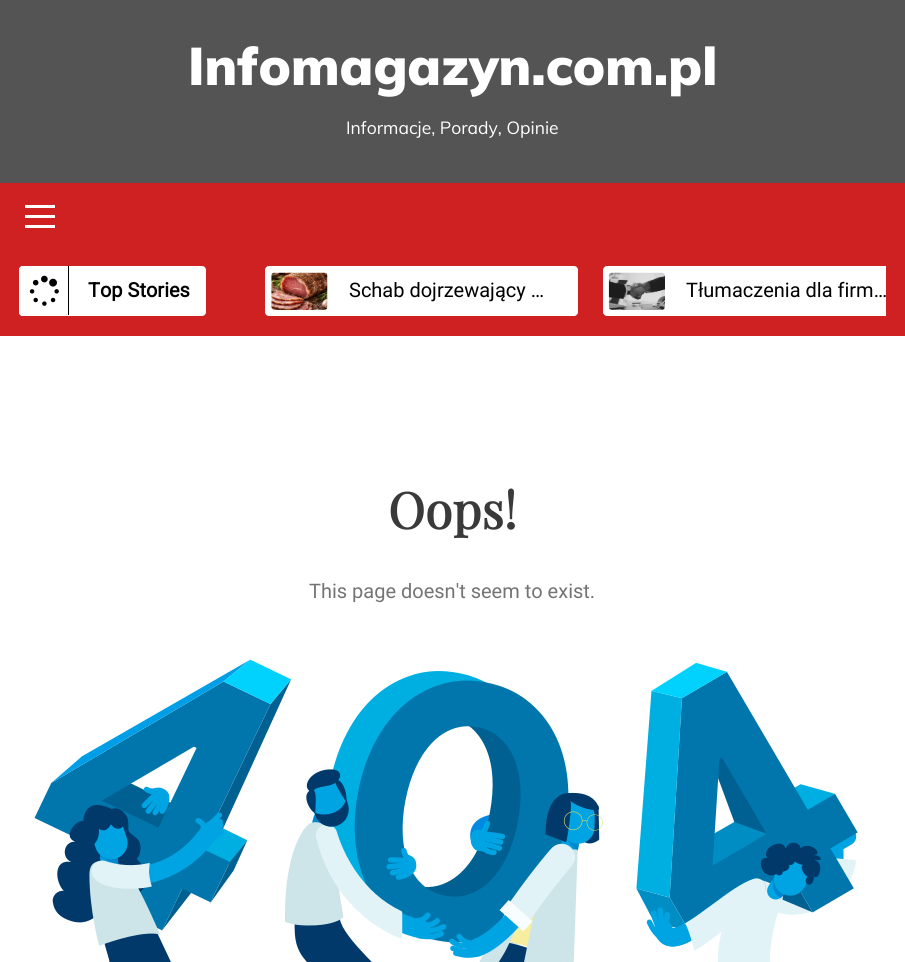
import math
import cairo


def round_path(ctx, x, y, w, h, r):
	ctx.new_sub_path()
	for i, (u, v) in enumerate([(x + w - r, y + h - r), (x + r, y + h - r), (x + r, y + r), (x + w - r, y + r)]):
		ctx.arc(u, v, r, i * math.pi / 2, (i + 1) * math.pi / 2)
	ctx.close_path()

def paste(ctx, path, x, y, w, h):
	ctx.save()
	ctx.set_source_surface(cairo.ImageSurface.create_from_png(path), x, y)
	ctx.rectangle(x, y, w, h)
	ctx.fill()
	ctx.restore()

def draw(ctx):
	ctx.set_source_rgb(1, 1, 1)
	ctx.paint()
	ctx.set_source_rgb(0.329, 0.329, 0.329)
	ctx.rectangle(0, 0, 905, 183)
	ctx.fill()
	ctx.select_font_face('Muli Black')
	ctx.set_font_size(52.5)
	ctx.set_source_rgb(1, 1, 1)
	ctx.move_to(188, 85)
	ctx.show_text('Infomagazyn.com.pl')
	ctx.select_font_face('Muli')
	ctx.set_font_size(17.5)
	ctx.move_to(346, 134)
	ctx.show_text('Informacje, Porady, Opinie')
	ctx.set_source_rgb(0.812, 0.129, 0.129)
	ctx.rectangle(0, 183, 905, 153)
	ctx.fill()
	ctx.set_source_rgb(1, 1, 1)
	ctx.rectangle(25, 205, 30, 3)
	ctx.rectangle(25, 215, 30, 3)
	ctx.rectangle(25, 225, 30, 3)
	ctx.fill()
	round_path(ctx, 19, 266, 187, 50, 4)
	ctx.fill()
	ctx.new_path()
	ctx.move_to(23, 266)
	ctx.line_to(69, 266)
	ctx.line_to(69, 316)
	ctx.line_to(23, 316)
	ctx.curve_to(21, 316, 19, 314, 19, 312)
	ctx.line_to(19, 270)
	ctx.curve_to(19, 268, 21, 266, 23, 266)
	ctx.close_path()
	ctx.fill()
	ctx.save()
	round_path(ctx, 19, 266, 187, 50, 4)
	ctx.clip()
	ctx.rectangle(19, 266, 50, 1)
	ctx.fill()
	ctx.restore()
	ctx.set_source_rgb(0, 0, 0)
	ctx.rectangle(68, 266, 1, 50)
	ctx.fill()
	ctx.save()
	round_path(ctx, 19, 266, 187, 50, 4)
	ctx.clip()
	ctx.set_source_rgb(1, 1, 1)
	ctx.rectangle(19, 315, 50, 1)
	ctx.fill()
	ctx.rectangle(19, 266, 1, 50)
	ctx.fill()
	ctx.restore()
	paste(ctx, 'media/1.png', 29, 275, 30, 31)
	ctx.select_font_face('Roboto', cairo.FONT_SLANT_NORMAL, cairo.FONT_WEIGHT_BOLD)
	ctx.set_font_size(20)
	ctx.move_to(88, 297)
	ctx.show_text('Top Stories')
	ctx.set_source_rgb(1, 1, 1)
	round_path(ctx, 265, 266, 313, 50, 4)
	ctx.fill()
	paste(ctx, 'media/2.png', 271, 272, 57, 38)
	ctx.select_font_face('Roboto')
	ctx.set_source_rgb(0, 0, 0)
	ctx.move_to(349, 297)
	ctx.show_text('Schab dojrzewający …')
	ctx.set_source_rgb(1, 1, 1)
	ctx.new_path()
	ctx.move_to(607, 266)
	ctx.line_to(886, 266)
	ctx.line_to(886, 316)
	ctx.line_to(607, 316)
	ctx.curve_to(605, 316, 603, 314, 603, 312)
	ctx.line_to(603, 270)
	ctx.curve_to(603, 268, 605, 266, 607, 266)
	ctx.close_path()
	ctx.fill()
	paste(ctx, 'media/3.png', 608, 272, 57, 38)
	ctx.set_source_rgb(0, 0, 0)
	ctx.move_to(686, 297)
	ctx.show_text('Tłumaczenia dla firm…')
	ctx.select_font_face('Playfair Display', cairo.FONT_SLANT_NORMAL, cairo.FONT_WEIGHT_BOLD)
	ctx.set_font_size(50)
	ctx.set_source_rgb(0.227, 0.227, 0.227)
	ctx.move_to(388, 529)
	ctx.show_text('Oops!')
	ctx.select_font_face('Roboto')
	ctx.set_font_size(20)
	ctx.set_source_rgb(0.455, 0.455, 0.455)
	ctx.move_to(309, 598)
	ctx.show_text('This page doesn\'t seem to exist.')
	paste(ctx, 'media/4.png', 34, 659, 824, 303)


surface = cairo.ImageSurface(cairo.FORMAT_RGB24, 905, 962)
ctx = cairo.Context(surface)
options = cairo.FontOptions()
options.set_hint_metrics(cairo.HINT_METRICS_OFF)
options.set_hint_style(cairo.HINT_STYLE_NONE)
ctx.set_font_options(options)
ctx.set_miter_limit(4)
draw(ctx)
surface.write_to_png('image.png')
